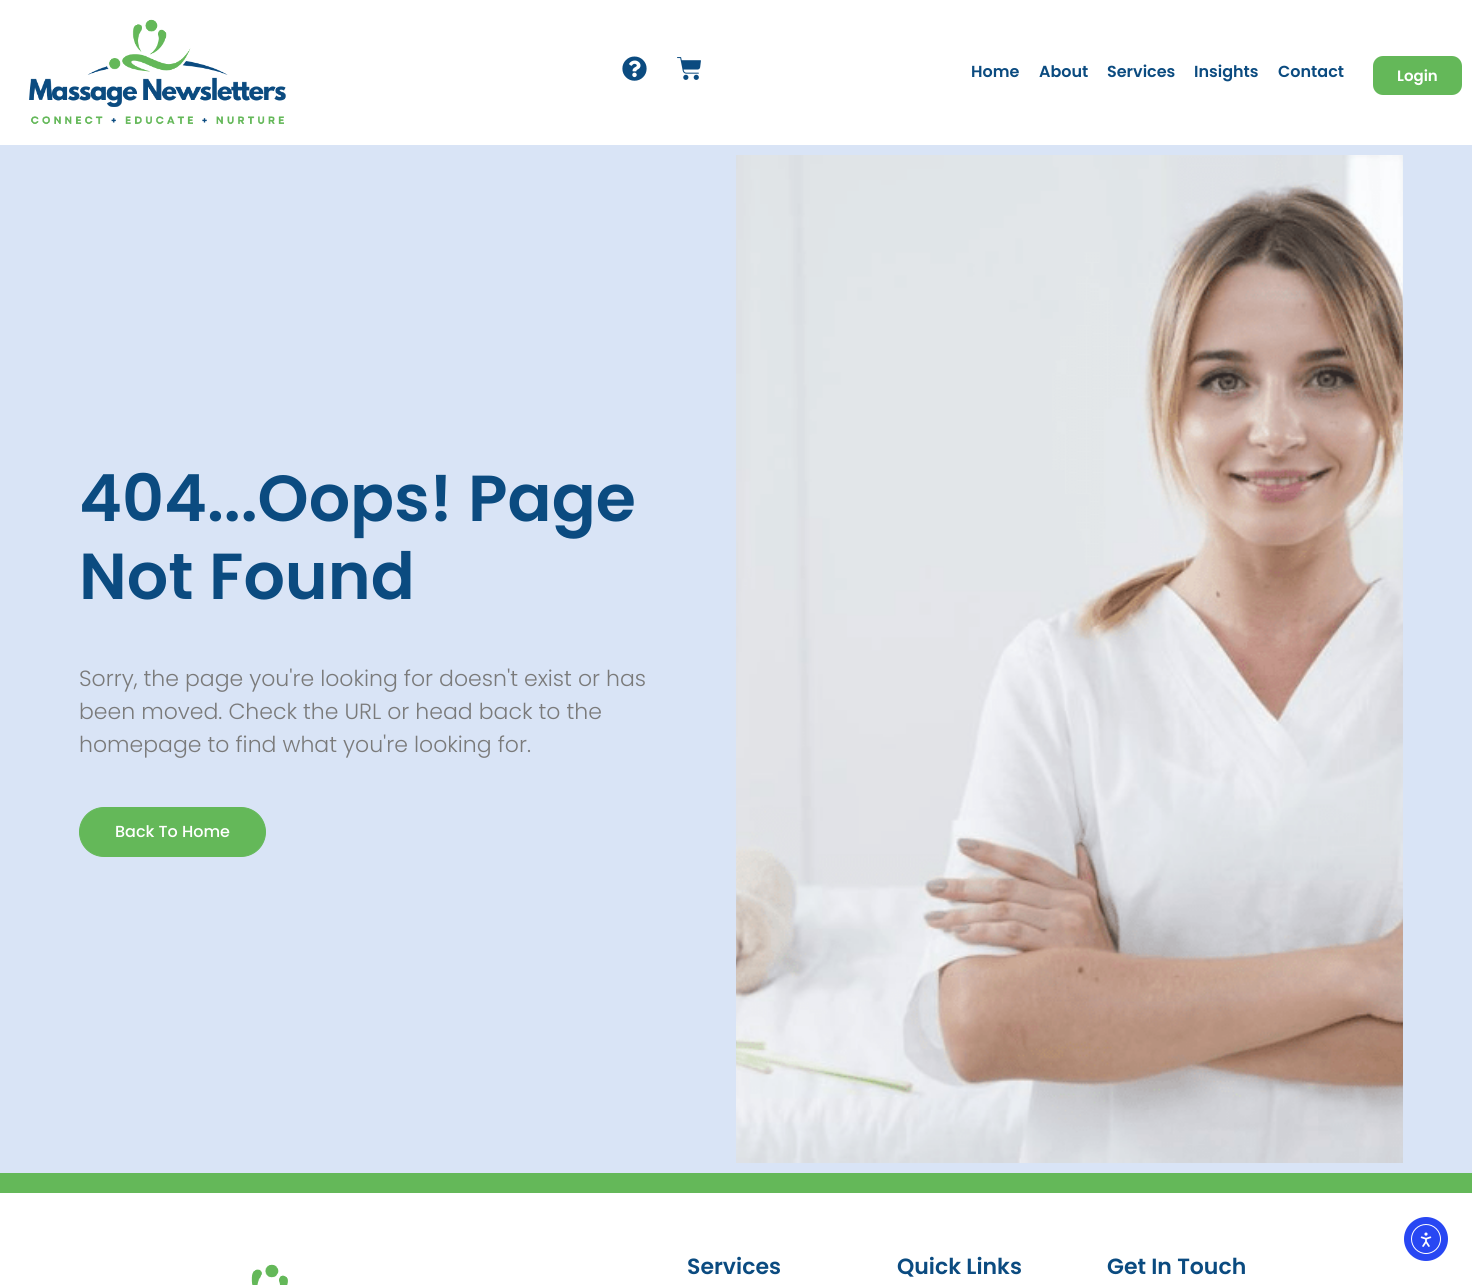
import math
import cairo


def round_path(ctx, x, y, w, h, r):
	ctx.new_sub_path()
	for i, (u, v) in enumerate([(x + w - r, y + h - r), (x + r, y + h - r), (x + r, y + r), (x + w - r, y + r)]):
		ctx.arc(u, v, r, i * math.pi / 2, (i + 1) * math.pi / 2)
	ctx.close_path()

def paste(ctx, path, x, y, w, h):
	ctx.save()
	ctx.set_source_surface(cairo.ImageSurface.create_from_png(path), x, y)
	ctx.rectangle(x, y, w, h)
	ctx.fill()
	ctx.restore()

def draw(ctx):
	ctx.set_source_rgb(1, 1, 1)
	ctx.paint()
	paste(ctx, 'media/1.png', 29, 19, 257, 106)
	paste(ctx, 'media/2.png', 622, 56, 25, 25)
	paste(ctx, 'media/3.png', 677, 57, 24, 23)
	ctx.select_font_face('Poppins SemiBold')
	ctx.set_font_size(16)
	ctx.set_source_rgb(0.043, 0.294, 0.502)
	for x, y, s in [
		(971, 77, 'Home'),
		(1039, 77, 'About'),
		(1107, 77, 'Services'),
		(1194, 77, 'Insights'),
		(1278, 77, 'Contact'),
	]:
		ctx.move_to(x, y)
		ctx.show_text(s)
	ctx.set_source_rgb(0.392, 0.722, 0.349)
	round_path(ctx, 1373, 56, 89, 39, 10)
	ctx.fill()
	ctx.set_font_size(15)
	ctx.set_source_rgb(1, 1, 1)
	ctx.move_to(1397, 81)
	ctx.show_text('Login')
	ctx.set_source_rgb(0.851, 0.894, 0.961)
	ctx.rectangle(0, 145, 1472, 1028)
	ctx.fill()
	ctx.set_font_size(65)
	ctx.set_source_rgb(0.043, 0.294, 0.502)
	ctx.move_to(79, 521)
	ctx.show_text('404...Oops! Page')
	ctx.move_to(79, 599)
	ctx.show_text('Not Found')
	ctx.select_font_face('Poppins Light')
	ctx.set_font_size(22)
	ctx.set_source_rgb(0.478, 0.478, 0.478)
	for x, y, s in [
		(79, 686, 'Sorry, the page you\'re looking for doesn\'t exist or has'),
		(79, 719, 'been moved. Check the URL or head back to the'),
		(79, 752, 'homepage to find what you\'re looking for.'),
	]:
		ctx.move_to(x, y)
		ctx.show_text(s)
	ctx.set_source_rgb(0.392, 0.722, 0.349)
	round_path(ctx, 79.5, 807.5, 186, 49, 24.5)
	ctx.fill_preserve()
	ctx.set_line_width(1)
	ctx.stroke()
	ctx.select_font_face('Poppins Medium')
	ctx.set_font_size(16)
	ctx.set_source_rgb(1, 1, 1)
	ctx.move_to(115, 837)
	ctx.show_text('Back To Home')
	paste(ctx, 'media/4.png', 736, 155, 667, 1008)
	ctx.set_source_rgb(0.157, 0.278, 0.953)
	ctx.arc(1426, 1239, 22, 0, 2 * math.pi)
	ctx.fill()
	ctx.arc(1426, 1239, 14.5, 0, 2 * math.pi)
	ctx.set_source_rgb(1, 1, 1)
	ctx.stroke()
	paste(ctx, 'media/5.png', 1420, 1232, 12, 15)
	ctx.set_source_rgb(0.392, 0.722, 0.349)
	ctx.rectangle(0, 1173, 1472, 20)
	ctx.fill()
	paste(ctx, 'media/6.png', 251, 1264, 37, 21)
	ctx.select_font_face('Poppins SemiBold')
	ctx.set_font_size(22)
	ctx.set_source_rgb(0.043, 0.294, 0.502)
	for x, y, s in [
		(687, 1274, 'Services'),
		(897, 1274, 'Quick Links'),
		(1107, 1274, 'Get In Touch'),
	]:
		ctx.move_to(x, y)
		ctx.show_text(s)


surface = cairo.ImageSurface(cairo.FORMAT_RGB24, 1472, 1285)
ctx = cairo.Context(surface)
options = cairo.FontOptions()
options.set_hint_metrics(cairo.HINT_METRICS_OFF)
options.set_hint_style(cairo.HINT_STYLE_NONE)
ctx.set_font_options(options)
ctx.set_miter_limit(4)
draw(ctx)
surface.write_to_png('image.png')
